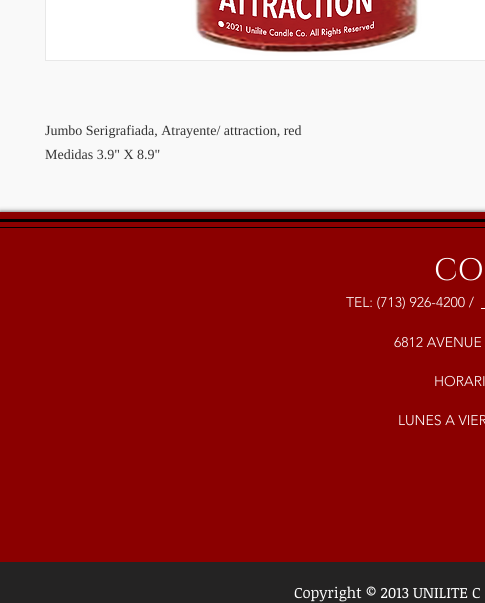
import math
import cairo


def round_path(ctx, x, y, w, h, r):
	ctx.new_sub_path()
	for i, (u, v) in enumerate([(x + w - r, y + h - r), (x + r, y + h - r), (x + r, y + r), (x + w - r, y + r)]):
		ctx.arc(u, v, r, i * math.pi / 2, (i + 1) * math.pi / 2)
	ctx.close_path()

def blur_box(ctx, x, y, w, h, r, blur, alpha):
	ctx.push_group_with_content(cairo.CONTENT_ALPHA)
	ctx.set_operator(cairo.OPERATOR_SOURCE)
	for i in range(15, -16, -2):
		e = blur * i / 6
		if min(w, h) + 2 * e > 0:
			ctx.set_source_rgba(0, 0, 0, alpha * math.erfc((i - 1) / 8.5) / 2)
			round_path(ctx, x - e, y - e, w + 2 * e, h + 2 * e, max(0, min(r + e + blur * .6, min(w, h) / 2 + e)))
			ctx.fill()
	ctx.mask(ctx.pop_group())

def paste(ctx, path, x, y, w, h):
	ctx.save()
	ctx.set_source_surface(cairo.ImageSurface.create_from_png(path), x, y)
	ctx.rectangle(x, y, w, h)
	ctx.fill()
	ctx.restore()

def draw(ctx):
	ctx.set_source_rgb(0.973, 0.973, 0.973)
	ctx.paint()
	ctx.rectangle(45.5, -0.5, 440, 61)
	ctx.set_source_rgb(0.91, 0.91, 0.91)
	ctx.set_line_width(1)
	ctx.stroke()
	paste(ctx, 'media/1.png', 46, 0, 439, 60)
	ctx.select_font_face('Liberation Serif')
	ctx.set_font_size(14)
	ctx.set_source_rgb(0.2, 0.2, 0.2)
	ctx.move_to(45, 135)
	ctx.show_text('Jumbo Serigrafiada, Atrayente/ attraction, red')
	ctx.move_to(45, 159)
	ctx.show_text('Medidas 3.9" X 8.9"')
	ctx.set_source_rgb(0, 0, 0)
	blur_box(ctx, 0, 212, 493, 391, 0, 2.5, 0.7)
	ctx.set_source_rgb(0.545, 0, 0)
	ctx.rectangle(0, 212, 485, 350)
	ctx.fill()
	ctx.set_source_rgb(0, 0, 0)
	ctx.rectangle(0, 219, 485, 3)
	ctx.rectangle(0, 227, 485, 1)
	ctx.fill()
	ctx.select_font_face('Cinzel')
	ctx.set_font_size(31)
	ctx.set_source_rgb(1, 1, 1)
	ctx.move_to(434, 280)
	ctx.show_text('CO')
	ctx.select_font_face('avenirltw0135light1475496 Light')
	ctx.set_font_size(14)
	ctx.move_to(346, 307)
	ctx.show_text('TEL: (713) 926-4200 /')
	ctx.rectangle(481, 308, 4, 1)
	ctx.fill()
	for x, y, s in [
		(394, 347, '6812 AVENUE'),
		(434, 386, 'HORARI'),
		(398, 425, 'LUNES A VIER'),
	]:
		ctx.move_to(x, y)
		ctx.show_text(s)
	ctx.set_source_rgb(0.141, 0.137, 0.137)
	ctx.rectangle(0, 562, 485, 41)
	ctx.fill()
	ctx.select_font_face('Noticia Text')
	ctx.set_font_size(15)
	ctx.set_source_rgb(1, 1, 1)
	ctx.move_to(294, 598)
	ctx.show_text('Copyright © 2013 UNILITE C')


surface = cairo.ImageSurface(cairo.FORMAT_RGB24, 485, 603)
ctx = cairo.Context(surface)
options = cairo.FontOptions()
options.set_hint_metrics(cairo.HINT_METRICS_OFF)
options.set_hint_style(cairo.HINT_STYLE_NONE)
ctx.set_font_options(options)
ctx.set_miter_limit(4)
draw(ctx)
surface.write_to_png('image.png')
